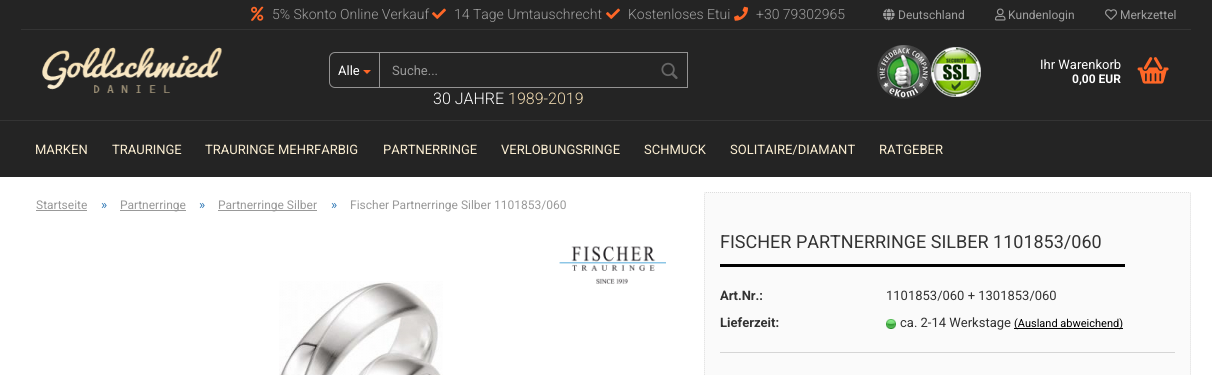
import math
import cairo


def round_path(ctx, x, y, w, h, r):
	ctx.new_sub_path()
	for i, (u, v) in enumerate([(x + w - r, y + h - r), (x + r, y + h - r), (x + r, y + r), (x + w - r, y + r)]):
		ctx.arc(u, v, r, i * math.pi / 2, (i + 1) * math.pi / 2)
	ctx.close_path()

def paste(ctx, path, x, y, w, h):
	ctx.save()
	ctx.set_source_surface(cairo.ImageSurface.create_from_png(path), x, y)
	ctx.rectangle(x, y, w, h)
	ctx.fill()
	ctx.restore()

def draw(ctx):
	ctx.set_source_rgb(1, 1, 1)
	ctx.paint()
	ctx.set_source_rgb(0.141, 0.141, 0.141)
	ctx.rectangle(0, 0, 1212, 177)
	ctx.fill()
	ctx.set_source_rgb(0.204, 0.204, 0.204)
	ctx.rectangle(21, 29, 1170, 1)
	ctx.fill()
	paste(ctx, 'media/1.png', 251, 6, 13, 15)
	ctx.select_font_face('Roboto Light')
	ctx.set_font_size(14)
	ctx.set_source_rgb(0.624, 0.624, 0.624)
	ctx.move_to(272, 19)
	ctx.show_text('5% Skonto Online Verkauf')
	paste(ctx, 'media/2.png', 432, 8, 14, 11)
	ctx.move_to(454, 19)
	ctx.show_text('14 Tage Umtauschrecht')
	paste(ctx, 'media/2.png', 606, 8, 14, 11)
	ctx.move_to(628, 19)
	ctx.show_text('Kostenloses Etui')
	paste(ctx, 'media/3.png', 734, 6, 14, 15)
	ctx.move_to(756, 19)
	ctx.show_text('+30 79302965')
	paste(ctx, 'media/4.png', 883, 8, 12, 13)
	ctx.select_font_face('Roboto')
	ctx.set_font_size(12)
	ctx.move_to(898, 19)
	ctx.show_text('Deutschland')
	paste(ctx, 'media/5.png', 995, 8, 11, 13)
	ctx.move_to(1008, 19)
	ctx.show_text('Kundenlogin')
	paste(ctx, 'media/6.png', 1105, 9, 12, 11)
	ctx.move_to(1120, 19)
	ctx.show_text('Merkzettel')
	paste(ctx, 'media/7.png', 42, 47, 180, 46)
	ctx.new_path()
	ctx.move_to(335, 52.5)
	ctx.line_to(379.5, 52.5)
	ctx.line_to(379.5, 87.5)
	ctx.line_to(335, 87.5)
	ctx.curve_to(332, 87.5, 329.5, 85, 329.5, 82)
	ctx.line_to(329.5, 58)
	ctx.curve_to(329.5, 55, 332, 52.5, 335, 52.5)
	ctx.close_path()
	ctx.set_source_rgb(0.58, 0.576, 0.576)
	ctx.set_line_width(1)
	ctx.stroke()
	ctx.set_font_size(13)
	ctx.set_source_rgb(1, 1, 1)
	ctx.move_to(338, 75)
	ctx.show_text('Alle')
	ctx.set_source_rgb(1, 0.404, 0.153)
	ctx.new_path()
	ctx.move_to(363, 70)
	ctx.line_to(371, 70)
	ctx.line_to(367, 74)
	ctx.close_path()
	ctx.fill()
	ctx.set_source_rgb(0.58, 0.576, 0.576)
	ctx.rectangle(380, 52, 308, 1)
	ctx.rectangle(687, 52, 1, 36)
	ctx.rectangle(380, 87, 308, 1)
	ctx.fill()
	ctx.set_source_rgb(0.6, 0.6, 0.6)
	ctx.move_to(392, 75)
	ctx.show_text('Suche...')
	paste(ctx, 'media/8.png', 661, 62, 17, 17)
	ctx.select_font_face('Roboto Light')
	ctx.set_font_size(16)
	ctx.set_source_rgb(1, 1, 1)
	ctx.move_to(433, 104)
	ctx.show_text('30 JAHRE')
	ctx.set_source_rgb(0.941, 0.855, 0.69)
	ctx.move_to(508, 104)
	ctx.show_text('1989-2019')
	paste(ctx, 'media/9.png', 877, 45, 54, 54)
	paste(ctx, 'media/10.png', 931, 47, 50, 50)
	ctx.select_font_face('Roboto')
	ctx.set_font_size(13)
	ctx.set_source_rgb(1, 1, 1)
	ctx.move_to(1040, 69)
	ctx.show_text('Ihr Warenkorb')
	ctx.select_font_face('Roboto', cairo.FONT_SLANT_NORMAL, cairo.FONT_WEIGHT_BOLD)
	ctx.set_font_size(12)
	ctx.move_to(1072, 83)
	ctx.show_text('0,00 EUR')
	paste(ctx, 'media/11.png', 1137, 57, 32, 27)
	ctx.set_source_rgb(0.204, 0.204, 0.204)
	ctx.rectangle(0, 120, 1212, 1)
	ctx.fill()
	ctx.select_font_face('Roboto')
	ctx.set_font_size(13)
	ctx.set_source_rgb(0.98, 0.929, 0.82)
	for x, y, s in [
		(35, 154, 'MARKEN'),
		(112, 154, 'TRAURINGE'),
		(205, 154, 'TRAURINGE MEHRFARBIG'),
		(383, 154, 'PARTNERRINGE'),
		(501, 154, 'VERLOBUNGSRINGE'),
		(644, 154, 'SCHMUCK'),
		(730, 154, 'SOLITAIRE/DIAMANT'),
		(879, 154, 'RATGEBER'),
	]:
		ctx.move_to(x, y)
		ctx.show_text(s)
	ctx.set_font_size(12)
	ctx.set_source_rgb(0.6, 0.6, 0.6)
	ctx.move_to(36, 209)
	ctx.show_text('Startseite')
	ctx.rectangle(36, 210, 51, 1)
	ctx.fill()
	ctx.set_font_size(13)
	ctx.set_source_rgb(0.2, 0.478, 0.718)
	ctx.move_to(101, 209)
	ctx.show_text('»')
	ctx.set_source_rgb(0.6, 0.6, 0.6)
	ctx.rectangle(120, 210, 66, 1)
	ctx.fill()
	ctx.set_font_size(12)
	ctx.move_to(120, 209)
	ctx.show_text('Partnerringe')
	ctx.set_font_size(13)
	ctx.set_source_rgb(0.2, 0.478, 0.718)
	ctx.move_to(199, 209)
	ctx.show_text('»')
	ctx.set_source_rgb(0.6, 0.6, 0.6)
	ctx.rectangle(218, 210, 99, 1)
	ctx.fill()
	ctx.set_font_size(12)
	ctx.move_to(218, 209)
	ctx.show_text('Partnerringe Silber')
	ctx.set_font_size(13)
	ctx.set_source_rgb(0.2, 0.478, 0.718)
	ctx.move_to(331, 209)
	ctx.show_text('»')
	ctx.set_font_size(12)
	ctx.set_source_rgb(0.6, 0.6, 0.6)
	ctx.move_to(350, 209)
	ctx.show_text('Fischer Partnerringe Silber 1101853/060')
	paste(ctx, 'media/12.png', 559, 246, 107, 38)
	paste(ctx, 'media/13.png', 279, 281, 164, 94)
	ctx.set_source_rgb(0.98, 0.98, 0.98)
	round_path(ctx, 704, 192, 487, 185, 2)
	ctx.fill()
	ctx.new_path()
	ctx.move_to(706, 192.5)
	ctx.line_to(1189, 192.5)
	ctx.curve_to(1190, 192.5, 1190.5, 193, 1190.5, 194)
	ctx.line_to(1190.5, 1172)
	ctx.curve_to(1190.5, 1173, 1190, 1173.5, 1189, 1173.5)
	ctx.line_to(706, 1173.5)
	ctx.curve_to(705, 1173.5, 704.5, 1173, 704.5, 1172)
	ctx.line_to(704.5, 194)
	ctx.curve_to(704.5, 193, 705, 192.5, 706, 192.5)
	ctx.close_path()
	ctx.set_source_rgb(0.867, 0.867, 0.867)
	ctx.set_dash([1, 1])
	ctx.stroke()
	ctx.set_source_rgb(0, 0, 0)
	ctx.rectangle(720, 264, 405, 3)
	ctx.fill()
	ctx.set_font_size(18)
	ctx.set_source_rgb(0.2, 0.2, 0.2)
	ctx.move_to(720, 248)
	ctx.show_text('FISCHER PARTNERRINGE SILBER 1101853/060')
	ctx.set_source_rgb(0.835, 0.835, 0.835)
	ctx.rectangle(720, 352, 455, 1)
	ctx.fill()
	ctx.select_font_face('Roboto', cairo.FONT_SLANT_NORMAL, cairo.FONT_WEIGHT_BOLD)
	ctx.set_font_size(13)
	ctx.set_source_rgb(0.2, 0.2, 0.2)
	ctx.move_to(720, 300)
	ctx.show_text('Art.Nr.:')
	ctx.select_font_face('Roboto')
	ctx.move_to(886, 300)
	ctx.show_text('1101853/060 + 1301853/060')
	ctx.select_font_face('Roboto', cairo.FONT_SLANT_NORMAL, cairo.FONT_WEIGHT_BOLD)
	ctx.move_to(720, 327)
	ctx.show_text('Lieferzeit:')
	paste(ctx, 'media/14.png', 886, 319, 10, 10)
	ctx.select_font_face('Roboto')
	ctx.move_to(900, 327)
	ctx.show_text('ca. 2-14 Werkstage')
	ctx.set_source_rgb(0, 0, 0)
	ctx.rectangle(1014, 328, 109, 1)
	ctx.fill()
	ctx.set_font_size(11)
	ctx.move_to(1014, 327)
	ctx.show_text('(Ausland abweichend)')


surface = cairo.ImageSurface(cairo.FORMAT_RGB24, 1212, 375)
ctx = cairo.Context(surface)
options = cairo.FontOptions()
options.set_hint_metrics(cairo.HINT_METRICS_OFF)
options.set_hint_style(cairo.HINT_STYLE_NONE)
ctx.set_font_options(options)
ctx.set_miter_limit(4)
draw(ctx)
surface.write_to_png('image.png')
